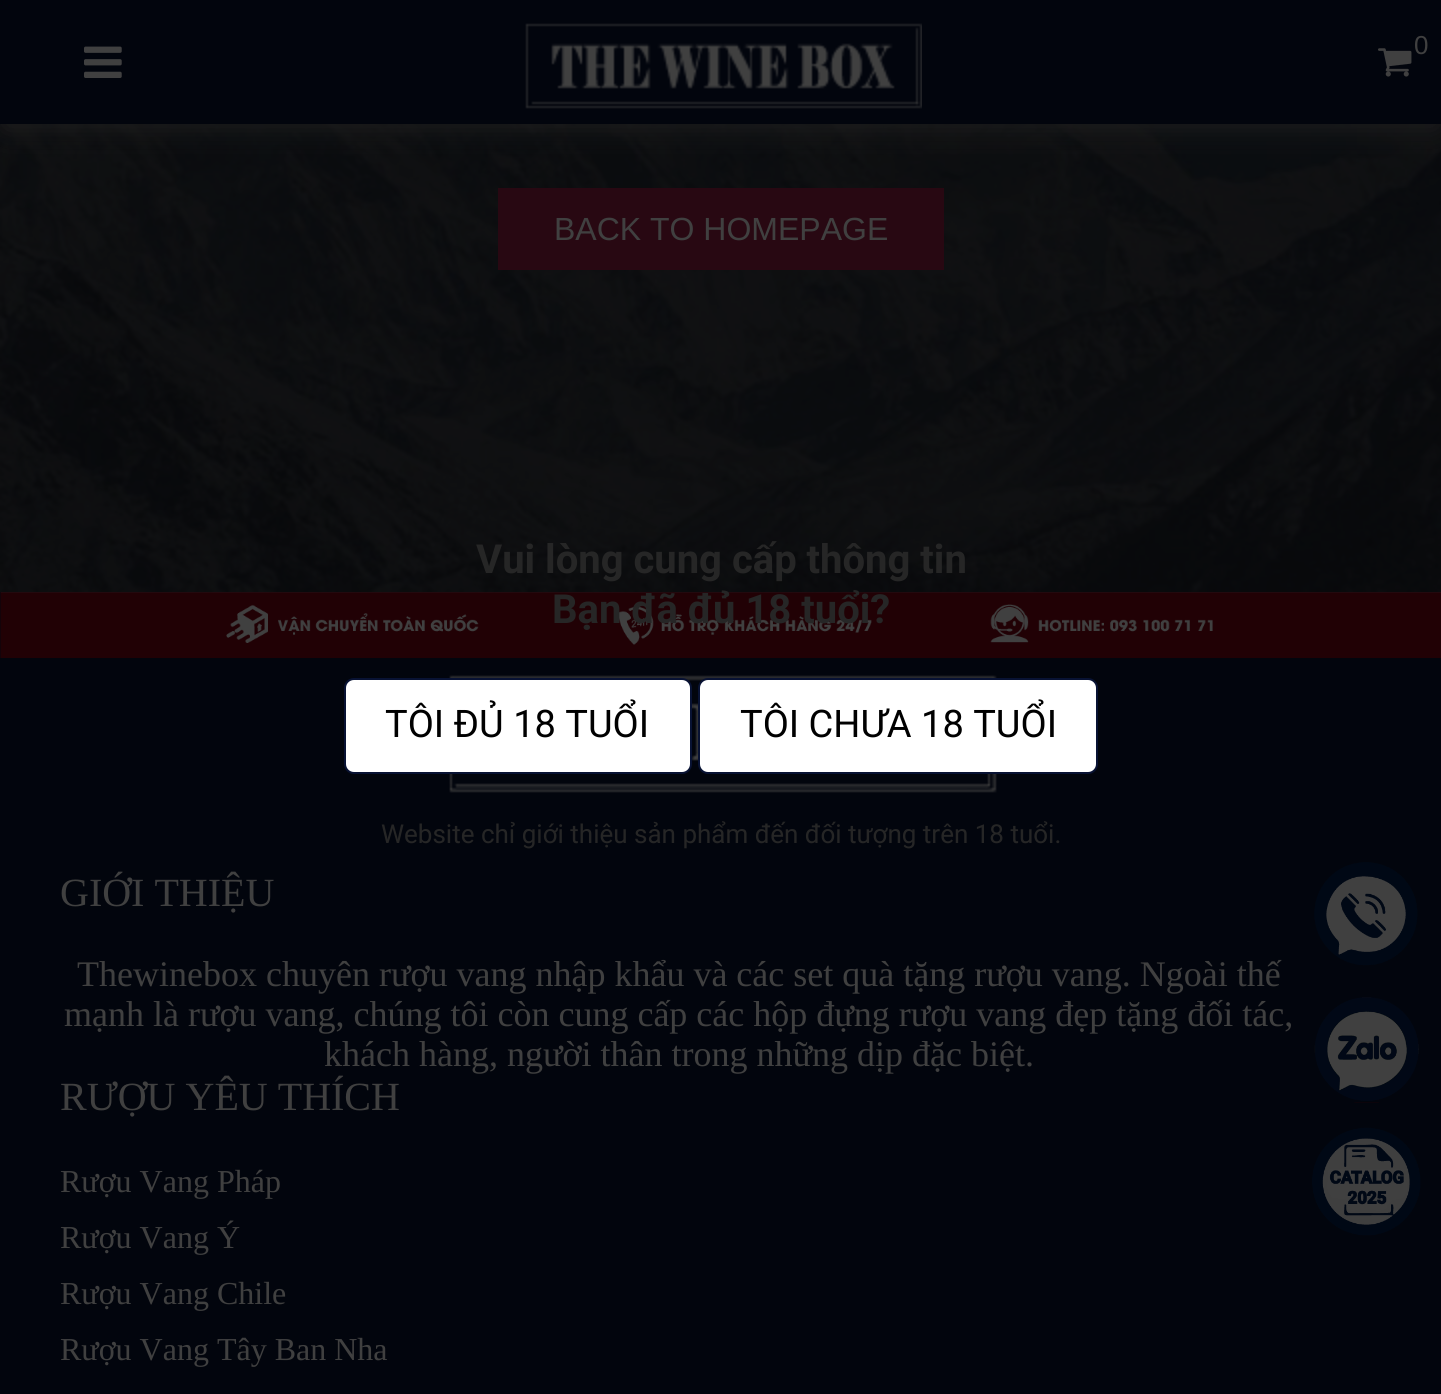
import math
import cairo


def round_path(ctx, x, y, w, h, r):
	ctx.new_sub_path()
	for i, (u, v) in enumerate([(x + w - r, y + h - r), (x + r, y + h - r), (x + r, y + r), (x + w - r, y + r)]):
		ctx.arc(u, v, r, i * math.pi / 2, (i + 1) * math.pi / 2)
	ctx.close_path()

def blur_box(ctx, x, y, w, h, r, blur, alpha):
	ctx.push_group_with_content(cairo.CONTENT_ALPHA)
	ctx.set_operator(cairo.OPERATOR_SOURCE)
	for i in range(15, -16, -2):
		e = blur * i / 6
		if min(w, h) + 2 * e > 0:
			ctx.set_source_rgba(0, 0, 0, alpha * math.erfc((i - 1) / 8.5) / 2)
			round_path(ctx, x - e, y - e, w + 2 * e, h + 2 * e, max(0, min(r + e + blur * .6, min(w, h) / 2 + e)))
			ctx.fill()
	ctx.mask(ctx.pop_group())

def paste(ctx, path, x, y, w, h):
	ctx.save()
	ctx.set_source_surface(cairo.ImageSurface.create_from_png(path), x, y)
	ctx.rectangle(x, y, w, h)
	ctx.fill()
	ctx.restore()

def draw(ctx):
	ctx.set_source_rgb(1, 1, 1)
	ctx.paint()
	paste(ctx, 'media/4.png', 0, 124, 1441, 468)
	ctx.set_source_rgb(0.125, 0.125, 0.125)
	blur_box(ctx, 6, 14, 1430, 112, 0, 13, 1)
	ctx.set_source_rgb(0.008, 0.02, 0.051)
	ctx.rectangle(0, 0, 1441, 124)
	ctx.fill()
	paste(ctx, 'media/1.png', 84, 46, 38, 32)
	paste(ctx, 'media/2.png', 525, 23, 397, 86)
	ctx.select_font_face('Liberation Sans')
	ctx.set_font_size(26)
	ctx.set_source_rgb(0.251, 0.251, 0.251)
	ctx.move_to(1414, 54)
	ctx.show_text('0')
	paste(ctx, 'media/3.png', 1378, 48, 34, 29)
	ctx.set_source_rgb(0.157, 0.035, 0.071)
	ctx.rectangle(498, 188, 446, 82)
	ctx.fill()
	ctx.set_font_size(32)
	ctx.set_source_rgb(0.251, 0.251, 0.251)
	ctx.move_to(554, 240)
	ctx.show_text('BACK TO HOMEPAGE')
	ctx.set_source_rgb(0.008, 0.02, 0.051)
	ctx.rectangle(0, 592, 1441, 802)
	ctx.fill()
	paste(ctx, 'media/5.png', 0, 592, 1441, 66)
	paste(ctx, 'media/6.png', 449, 675, 548, 118)
	ctx.select_font_face('Liberation Serif')
	ctx.set_font_size(40)
	ctx.set_source_rgb(0.251, 0.251, 0.251)
	ctx.move_to(60, 906)
	ctx.show_text('GIỚI THIỆU')
	ctx.set_font_size(36)
	for x, y, s in [
		(77, 986, 'Thewinebox chuyên rượu vang nhập khẩu và các set quà tặng rượu vang. Ngoài thế'),
		(64, 1026, 'mạnh là rượu vang, chúng tôi còn cung cấp các hộp đựng rượu vang đẹp tặng đối tác,'),
		(324, 1066, 'khách hàng, người thân trong những dịp đặc biệt.'),
	]:
		ctx.move_to(x, y)
		ctx.show_text(s)
	ctx.set_font_size(40)
	ctx.move_to(60, 1110)
	ctx.show_text('RƯỢU YÊU THÍCH')
	ctx.set_font_size(32)
	for x, y, s in [
		(60, 1192, 'Rượu Vang Pháp'),
		(60, 1248, 'Rượu Vang Ý'),
		(60, 1304, 'Rượu Vang Chile'),
		(60, 1360, 'Rượu Vang Tây Ban Nha'),
	]:
		ctx.move_to(x, y)
		ctx.show_text(s)
	ctx.select_font_face('Roboto', cairo.FONT_SLANT_NORMAL, cairo.FONT_WEIGHT_BOLD)
	ctx.set_font_size(40)
	ctx.set_source_rgb(0.149, 0.149, 0.149)
	ctx.move_to(476, 573)
	ctx.show_text('Vui lòng cung cấp thông tin')
	ctx.move_to(552, 623)
	ctx.show_text('Bạn đã đủ 18 tuổi?')
	ctx.set_source_rgb(1, 1, 1)
	round_path(ctx, 345, 679, 346, 94, 9)
	ctx.fill_preserve()
	ctx.set_source_rgb(0.035, 0.071, 0.2)
	ctx.stroke()
	ctx.select_font_face('Roboto')
	ctx.set_font_size(38)
	ctx.set_source_rgb(0, 0, 0)
	ctx.move_to(385, 737)
	ctx.show_text('TÔI ĐỦ 18 TUỔI')
	ctx.set_source_rgb(1, 1, 1)
	round_path(ctx, 699, 679, 398, 94, 9)
	ctx.fill_preserve()
	ctx.set_source_rgb(0.035, 0.071, 0.2)
	ctx.stroke()
	ctx.set_source_rgb(0, 0, 0)
	ctx.move_to(740, 737)
	ctx.show_text('TÔI CHƯA 18 TUỔI')
	ctx.set_font_size(26)
	ctx.set_source_rgb(0.149, 0.149, 0.149)
	ctx.move_to(381, 843)
	ctx.show_text('Website chỉ giới thiệu sản phẩm đến đối tượng trên 18 tuổi.')
	paste(ctx, 'media/7.png', 1314, 862, 104, 104)
	paste(ctx, 'media/8.png', 1314, 997, 105, 106)
	paste(ctx, 'media/9.png', 1312, 1127, 109, 109)


surface = cairo.ImageSurface(cairo.FORMAT_RGB24, 1441, 1394)
ctx = cairo.Context(surface)
options = cairo.FontOptions()
options.set_hint_metrics(cairo.HINT_METRICS_OFF)
options.set_hint_style(cairo.HINT_STYLE_NONE)
ctx.set_font_options(options)
ctx.set_miter_limit(4)
draw(ctx)
surface.write_to_png('image.png')
